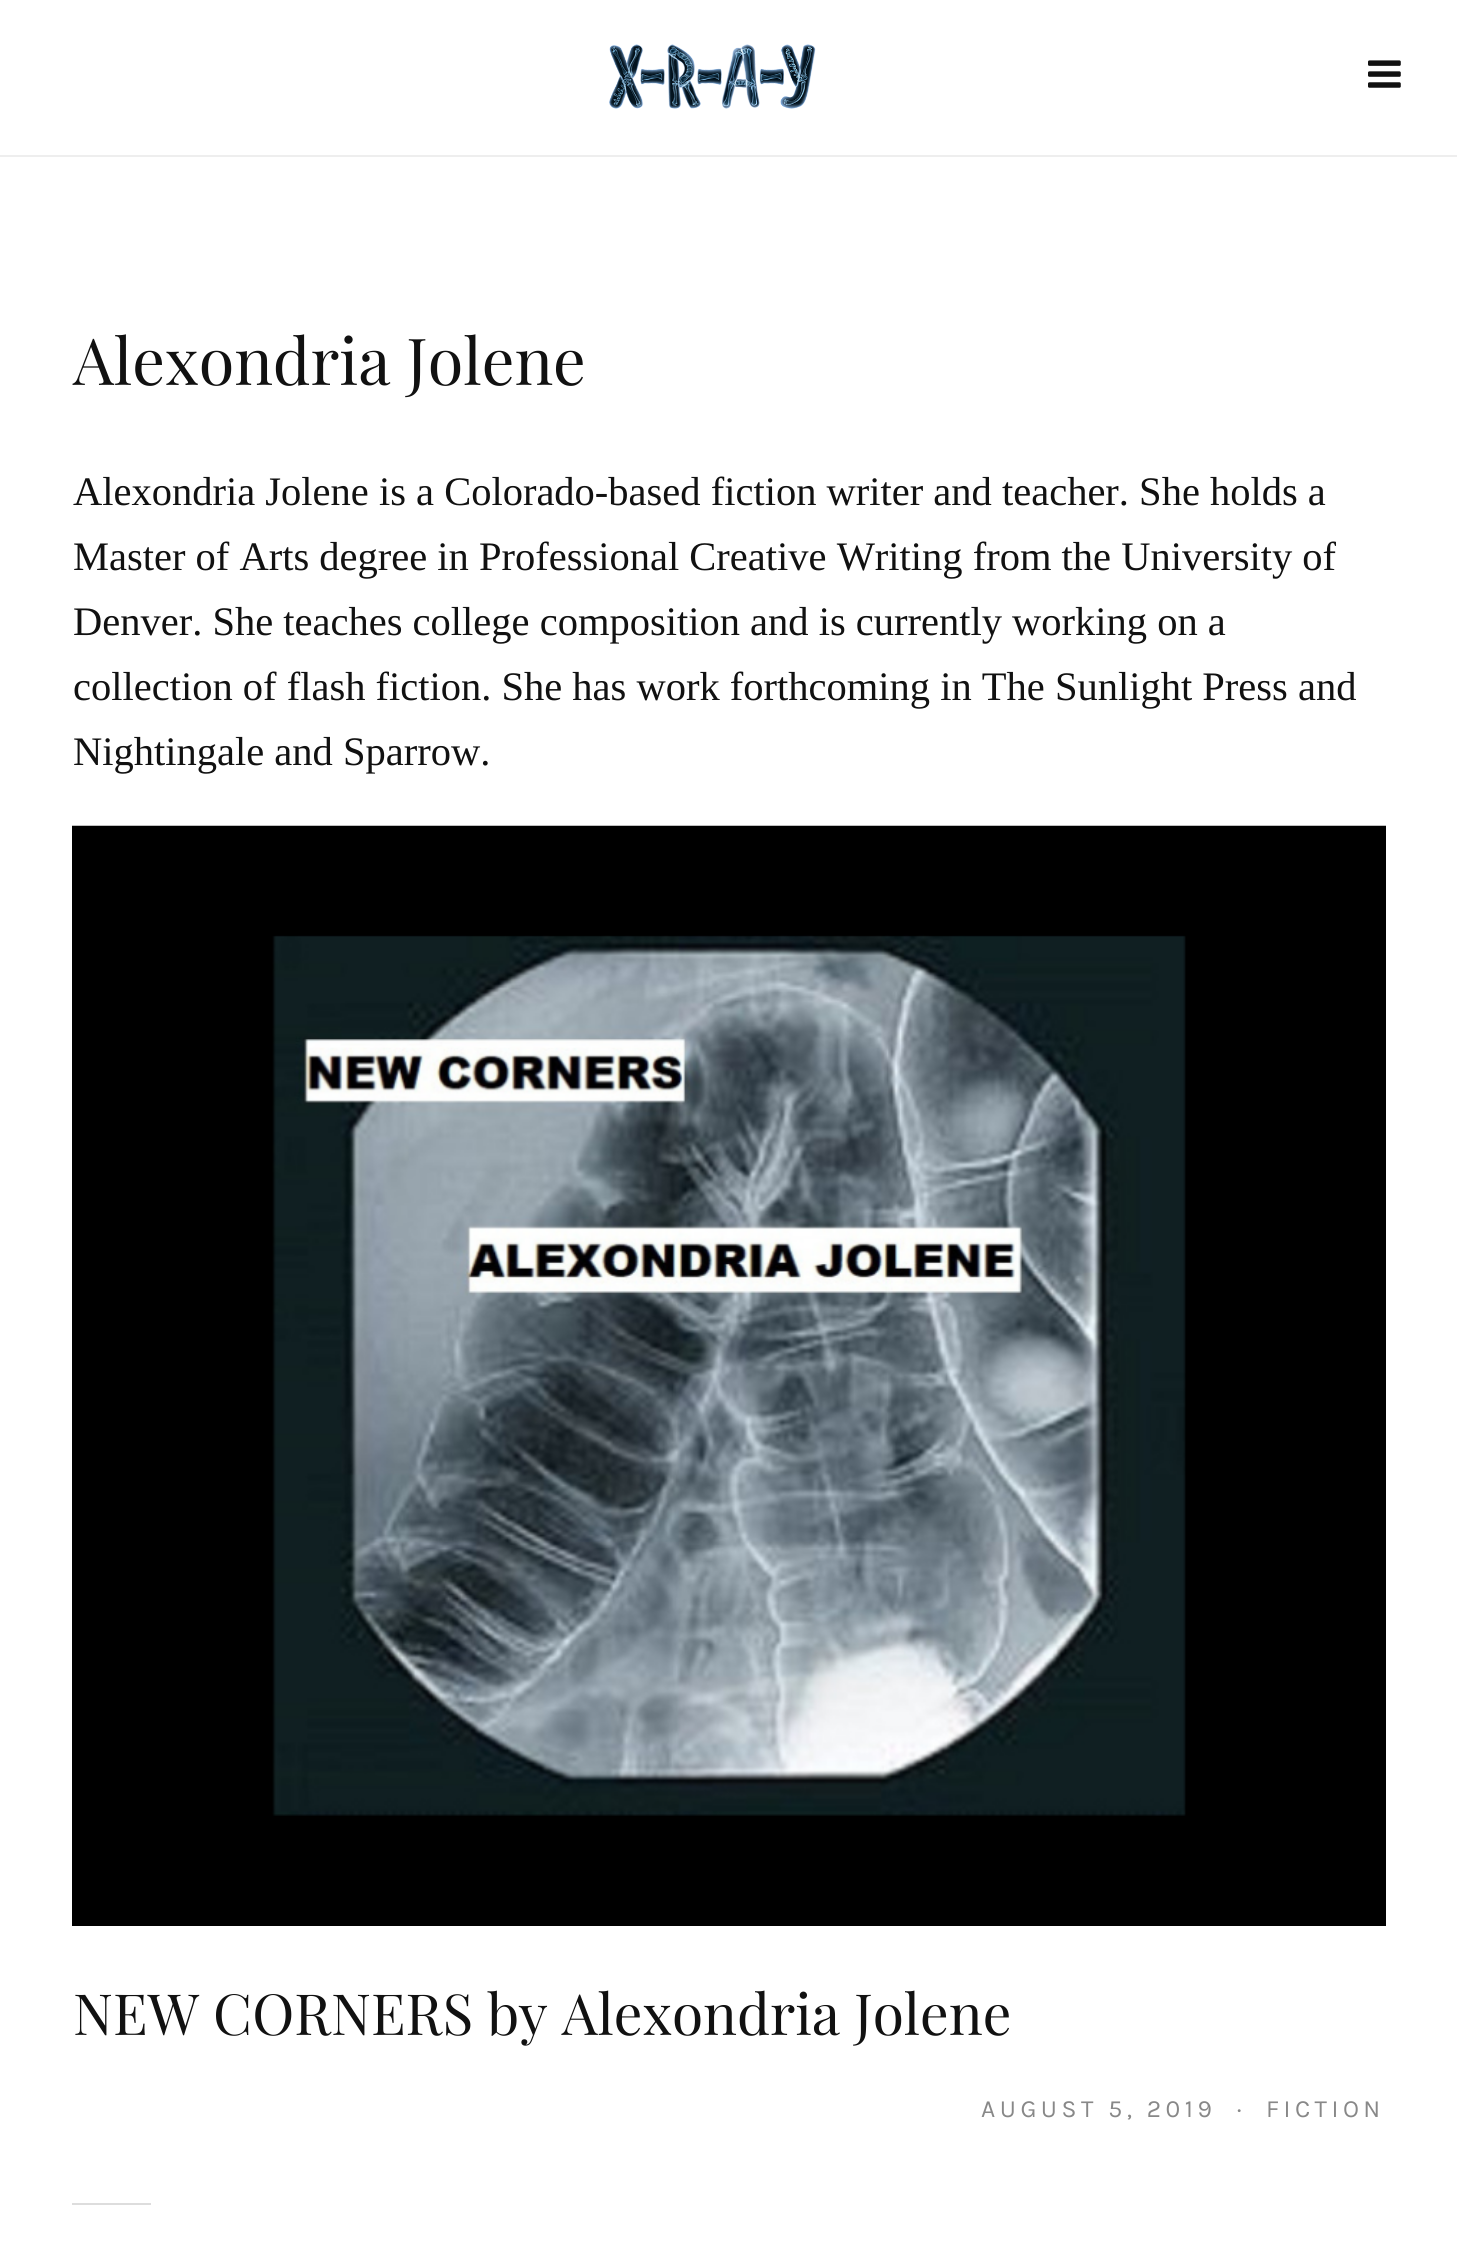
import math
import cairo


def write_spaced(ctx, x, y, s, letter, word):
	ctx.move_to(x, y)
	for ch in s:
		ctx.show_text(ch)
		ctx.rel_move_to(letter + word * (ch == ' '), 0)

def paste(ctx, path, x, y, w, h):
	ctx.save()
	ctx.set_source_surface(cairo.ImageSurface.create_from_png(path), x, y)
	ctx.rectangle(x, y, w, h)
	ctx.fill()
	ctx.restore()

def draw(ctx):
	ctx.set_source_rgb(1, 1, 1)
	ctx.paint()
	ctx.set_source_rgb(0.933, 0.933, 0.933)
	ctx.rectangle(0, 155, 1457, 2)
	ctx.fill()
	paste(ctx, 'media/1.png', 609, 44, 207, 65)
	paste(ctx, 'media/2.png', 1368, 60, 33, 28)
	ctx.select_font_face('Playfair Display')
	ctx.set_font_size(64.75)
	ctx.set_source_rgb(0.067, 0.067, 0.067)
	ctx.move_to(73, 385)
	ctx.show_text('Alexondria Jolene')
	ctx.select_font_face('Liberation Serif')
	ctx.set_font_size(40.5)
	for x, y, s in [
		(73, 505, 'Alexondria Jolene is a Colorado-based fiction writer and teacher. She holds a'),
		(73, 570, 'Master of Arts degree in Professional Creative Writing from the University of'),
		(73, 635, 'Denver. She teaches college composition and is currently working on a'),
		(73, 700, 'collection of flash fiction. She has work forthcoming in The Sunlight Press and'),
		(73, 765, 'Nightingale and Sparrow.'),
	]:
		ctx.move_to(x, y)
		ctx.show_text(s)
	paste(ctx, 'media/3.png', 72, 825, 1314, 1101)
	ctx.select_font_face('Playfair Display')
	ctx.set_font_size(56.75)
	ctx.move_to(73, 2035)
	ctx.show_text('NEW CORNERS by Alexondria Jolene')
	ctx.select_font_face('Karla')
	ctx.set_font_size(24.75)
	ctx.set_source_rgb(0.533, 0.533, 0.533)
	for x, y, s in [
		(981, 2117, 'AUGUST 5, 2019'),
		(1237, 2117, '·'),
		(1266, 2117, 'FICTION'),
	]:
		write_spaced(ctx, x, y, s, 4.5, 0)
	ctx.set_source_rgb(0.867, 0.867, 0.867)
	ctx.rectangle(72, 2203, 79, 2)
	ctx.fill()


surface = cairo.ImageSurface(cairo.FORMAT_RGB24, 1457, 2263)
ctx = cairo.Context(surface)
options = cairo.FontOptions()
options.set_hint_metrics(cairo.HINT_METRICS_OFF)
options.set_hint_style(cairo.HINT_STYLE_NONE)
ctx.set_font_options(options)
ctx.set_miter_limit(4)
draw(ctx)
surface.write_to_png('image.png')
